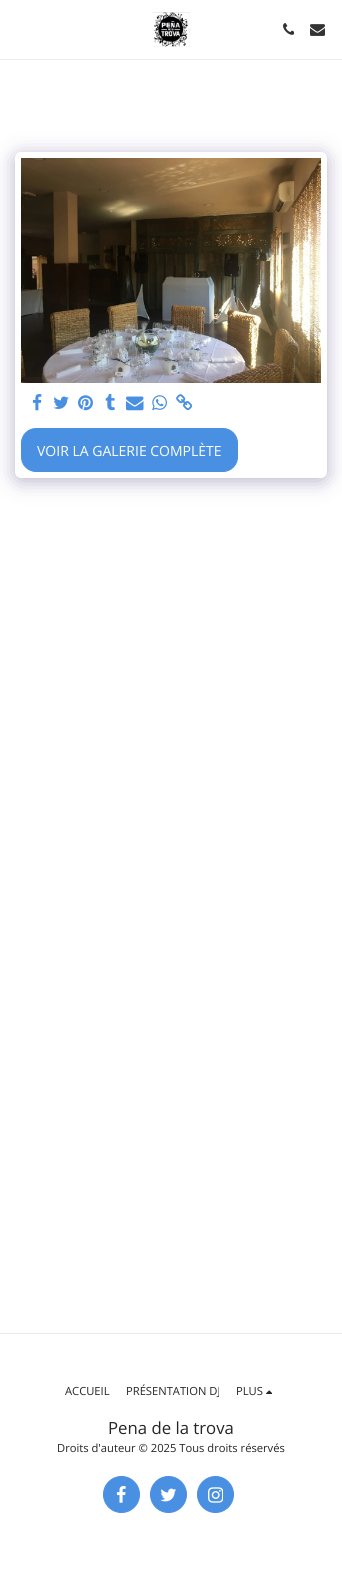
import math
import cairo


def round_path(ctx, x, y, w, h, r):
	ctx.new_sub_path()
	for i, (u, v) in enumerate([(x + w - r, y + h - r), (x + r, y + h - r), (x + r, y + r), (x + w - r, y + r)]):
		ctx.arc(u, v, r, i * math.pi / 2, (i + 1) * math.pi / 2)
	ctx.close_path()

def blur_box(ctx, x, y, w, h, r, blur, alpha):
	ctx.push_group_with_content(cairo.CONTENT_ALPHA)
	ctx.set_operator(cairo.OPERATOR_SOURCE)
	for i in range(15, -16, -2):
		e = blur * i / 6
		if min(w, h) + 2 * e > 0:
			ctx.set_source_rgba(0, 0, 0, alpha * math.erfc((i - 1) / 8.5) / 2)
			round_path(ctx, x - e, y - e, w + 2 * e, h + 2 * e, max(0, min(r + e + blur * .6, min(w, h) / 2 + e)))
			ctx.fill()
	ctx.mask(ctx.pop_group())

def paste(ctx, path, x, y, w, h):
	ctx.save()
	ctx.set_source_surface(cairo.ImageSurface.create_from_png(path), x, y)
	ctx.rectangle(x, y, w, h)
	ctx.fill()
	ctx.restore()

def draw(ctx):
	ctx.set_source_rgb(1, 1, 1)
	ctx.paint()
	ctx.set_source_rgb(0.922, 0.922, 0.922)
	ctx.rectangle(0, 59, 342, 1)
	ctx.fill()
	paste(ctx, 'media/1.png', 152, 12, 38, 35)
	paste(ctx, 'media/2.png', 283, 23, 11, 12)
	paste(ctx, 'media/3.png', 310, 24, 15, 12)
	ctx.set_source_rgb(0.302, 0.247, 0.478)
	blur_box(ctx, 15, 155, 312, 326, 6, 10, 0.4)
	ctx.set_source_rgb(1, 1, 1)
	round_path(ctx, 15, 152, 312, 326, 6)
	ctx.fill()
	paste(ctx, 'media/4.png', 21, 158, 300, 225)
	paste(ctx, 'media/5.png', 32, 394, 10, 17)
	paste(ctx, 'media/6.png', 53, 396, 16, 13)
	paste(ctx, 'media/7.png', 78, 395, 15, 16)
	paste(ctx, 'media/8.png', 105, 394, 10, 17)
	paste(ctx, 'media/9.png', 126, 396, 18, 15)
	paste(ctx, 'media/10.png', 152, 395, 15, 16)
	paste(ctx, 'media/11.png', 176, 394, 16, 17)
	ctx.set_source_rgb(0.29, 0.565, 0.886)
	round_path(ctx, 21.5, 428.5, 216, 43, 14.5)
	ctx.fill_preserve()
	ctx.set_line_width(1)
	ctx.stroke()
	ctx.select_font_face('Open Sans')
	ctx.set_font_size(14)
	ctx.set_source_rgb(1, 1, 1)
	ctx.move_to(37, 456)
	ctx.show_text('VOIR LA GALERIE COMPLÈTE')
	ctx.set_source_rgb(0.922, 0.922, 0.922)
	ctx.rectangle(0, 1333, 342, 1)
	ctx.fill()
	ctx.set_font_size(11.2)
	ctx.set_source_rgb(0.145, 0.145, 0.145)
	for x, y, s in [
		(65, 1395, 'ACCUEIL'),
		(126, 1395, 'PRÉSENTATION DJ'),
		(236, 1395, 'PLUS'),
	]:
		ctx.move_to(x, y)
		ctx.show_text(s)
	paste(ctx, 'media/12.png', 266, 1390, 6, 4)
	ctx.set_font_size(16.75)
	ctx.move_to(108, 1434)
	ctx.show_text('Pena de la trova')
	ctx.set_font_size(11.2)
	ctx.move_to(57, 1452)
	ctx.show_text('Droits d\'auteur © 2025 Tous droits réservés')
	ctx.set_source_rgb(0.29, 0.565, 0.886)
	ctx.new_path()
	ctx.arc(121.5, 1494.5, 18, 0, 2 * math.pi)
	ctx.fill_preserve()
	ctx.stroke()
	paste(ctx, 'media/13.png', 116, 1486, 10, 17)
	ctx.arc(168.5, 1494.5, 18, 0, 2 * math.pi)
	ctx.fill_preserve()
	ctx.stroke()
	paste(ctx, 'media/14.png', 160, 1488, 17, 14)
	ctx.arc(215.5, 1494.5, 18, 0, 2 * math.pi)
	ctx.fill_preserve()
	ctx.stroke()
	paste(ctx, 'media/15.png', 208, 1487, 15, 16)


surface = cairo.ImageSurface(cairo.FORMAT_RGB24, 342, 1591)
ctx = cairo.Context(surface)
options = cairo.FontOptions()
options.set_hint_metrics(cairo.HINT_METRICS_OFF)
options.set_hint_style(cairo.HINT_STYLE_NONE)
ctx.set_font_options(options)
ctx.set_miter_limit(4)
draw(ctx)
surface.write_to_png('image.png')
